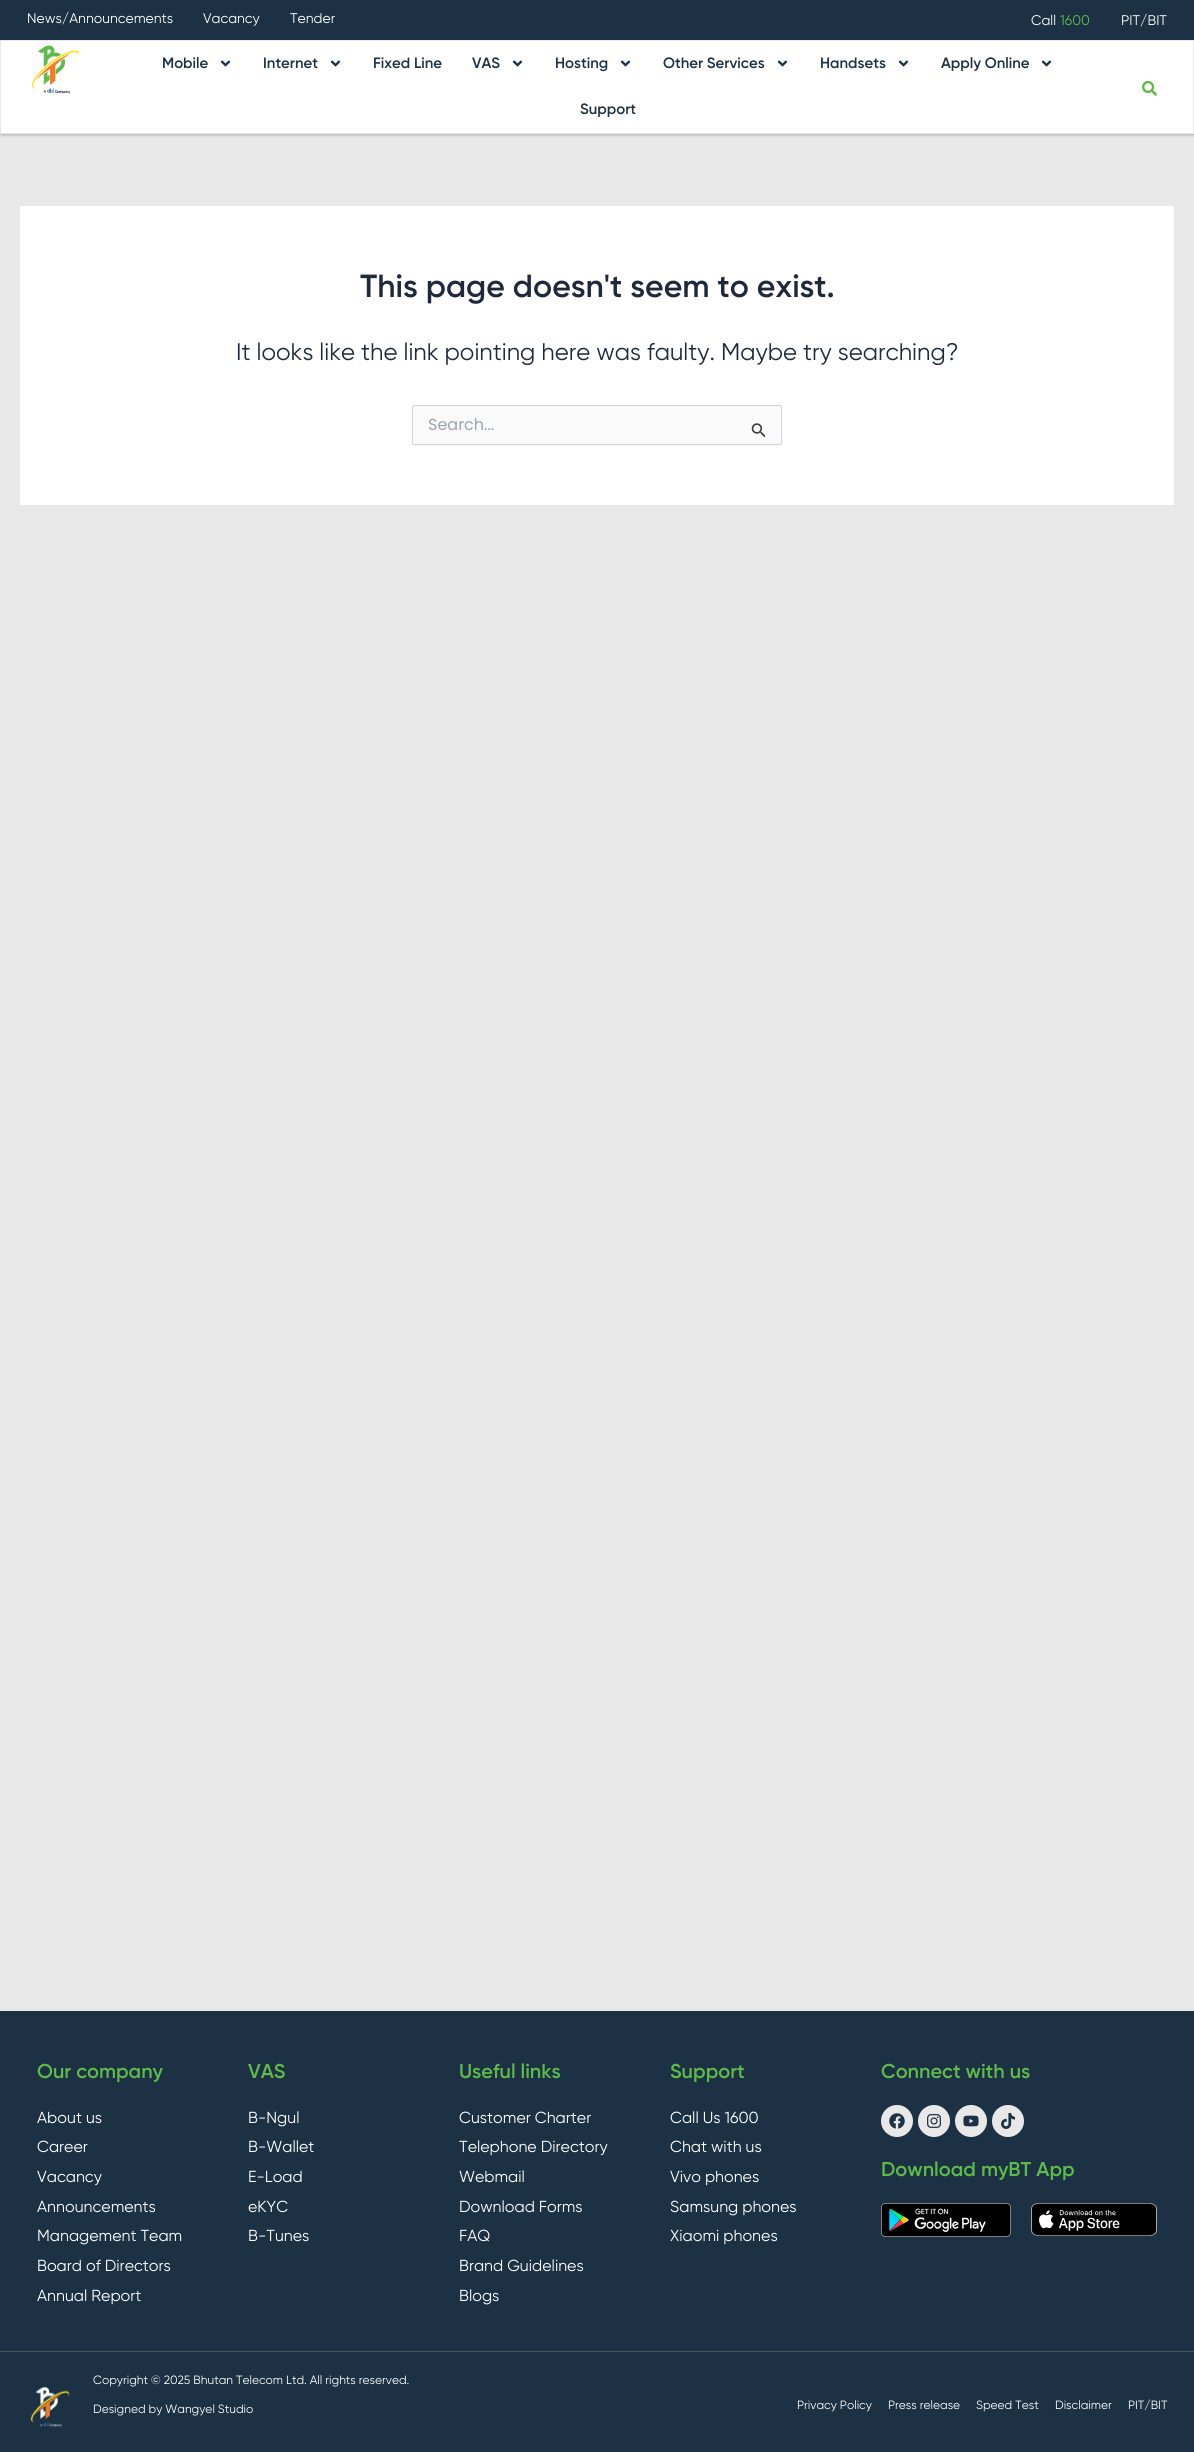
import math
import cairo


def round_path(ctx, x, y, w, h, r):
	ctx.new_sub_path()
	for i, (u, v) in enumerate([(x + w - r, y + h - r), (x + r, y + h - r), (x + r, y + r), (x + w - r, y + r)]):
		ctx.arc(u, v, r, i * math.pi / 2, (i + 1) * math.pi / 2)
	ctx.close_path()

def blur_box(ctx, x, y, w, h, r, blur, alpha):
	ctx.push_group_with_content(cairo.CONTENT_ALPHA)
	ctx.set_operator(cairo.OPERATOR_SOURCE)
	for i in range(15, -16, -2):
		e = blur * i / 6
		if min(w, h) + 2 * e > 0:
			ctx.set_source_rgba(0, 0, 0, alpha * math.erfc((i - 1) / 8.5) / 2)
			round_path(ctx, x - e, y - e, w + 2 * e, h + 2 * e, max(0, min(r + e + blur * .6, min(w, h) / 2 + e)))
			ctx.fill()
	ctx.mask(ctx.pop_group())

def paste(ctx, path, x, y, w, h):
	ctx.save()
	ctx.set_source_surface(cairo.ImageSurface.create_from_png(path), x, y)
	ctx.rectangle(x, y, w, h)
	ctx.fill()
	ctx.restore()

def draw(ctx):
	ctx.set_source_rgb(0.91, 0.91, 0.91)
	ctx.paint()
	ctx.set_source_rgb(0, 0, 0)
	blur_box(ctx, 1, 41, 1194, 94, 0, 1.5, 0.25)
	ctx.set_source_rgb(0.11, 0.192, 0.267)
	ctx.rectangle(0, 0, 1194, 40)
	ctx.fill()
	ctx.select_font_face('Gilroy')
	ctx.set_font_size(14)
	ctx.set_source_rgb(1, 1, 1)
	for x, y, s in [
		(27, 23, 'News/Announcements'),
		(203, 23, 'Vacancy'),
		(290, 23, 'Tender'),
		(1031, 25, 'Call'),
	]:
		ctx.move_to(x, y)
		ctx.show_text(s)
	ctx.set_source_rgb(0.373, 0.733, 0.286)
	ctx.move_to(1060, 25)
	ctx.show_text('1600')
	ctx.set_source_rgb(1, 1, 1)
	ctx.move_to(1121, 25)
	ctx.show_text('PIT/BIT')
	ctx.rectangle(0.5, 40.5, 1193, 93)
	ctx.fill_preserve()
	ctx.set_source_rgb(0.91, 0.91, 0.91)
	ctx.set_line_width(1)
	ctx.stroke()
	paste(ctx, 'media/1.png', 31, 45, 49, 49)
	ctx.select_font_face('Gilroy SemiBold')
	ctx.set_font_size(15)
	ctx.set_source_rgb(0.114, 0.192, 0.267)
	ctx.move_to(162, 68)
	ctx.show_text('Mobile')
	paste(ctx, 'media/2.png', 220, 60, 11, 7)
	ctx.move_to(263, 68)
	ctx.show_text('Internet')
	paste(ctx, 'media/2.png', 330, 60, 11, 7)
	ctx.move_to(373, 68)
	ctx.show_text('Fixed Line')
	ctx.move_to(472, 68)
	ctx.show_text('VAS')
	paste(ctx, 'media/2.png', 512, 60, 11, 7)
	ctx.move_to(555, 68)
	ctx.show_text('Hosting')
	paste(ctx, 'media/2.png', 620, 60, 11, 7)
	ctx.move_to(663, 68)
	ctx.show_text('Other Services')
	paste(ctx, 'media/2.png', 777, 60, 11, 7)
	ctx.move_to(820, 68)
	ctx.show_text('Handsets')
	paste(ctx, 'media/2.png', 898, 60, 11, 7)
	ctx.move_to(941, 68)
	ctx.show_text('Apply Online')
	paste(ctx, 'media/2.png', 1041, 60, 11, 7)
	ctx.move_to(580, 114)
	ctx.show_text('Support')
	paste(ctx, 'media/3.png', 1142, 80, 15, 16)
	ctx.set_source_rgb(1, 1, 1)
	ctx.rectangle(20, 206, 1154, 299)
	ctx.fill()
	ctx.set_font_size(32)
	ctx.set_source_rgb(0.118, 0.161, 0.231)
	ctx.move_to(360, 297)
	ctx.show_text('This page doesn\'t seem to exist.')
	ctx.select_font_face('Gilroy')
	ctx.set_font_size(24)
	ctx.move_to(236, 360)
	ctx.show_text('It looks like the link pointing here was faulty. Maybe try searching?')
	ctx.set_source_rgb(0, 0, 0)
	blur_box(ctx, 412, 406, 370, 40, 2, 1, 0.05)
	ctx.set_source_rgb(0.98, 0.98, 0.98)
	round_path(ctx, 412.5, 405.5, 369, 39, 1.5)
	ctx.fill_preserve()
	ctx.set_source_rgb(0.82, 0.835, 0.859)
	ctx.stroke()
	ctx.select_font_face('Poppins')
	ctx.set_font_size(16)
	ctx.set_source_rgb(0.612, 0.639, 0.686)
	ctx.move_to(428, 430)
	ctx.show_text('Search...')
	paste(ctx, 'media/4.png', 751, 423, 14, 15)
	ctx.set_source_rgb(0.11, 0.192, 0.267)
	ctx.rectangle(0, 2011, 1194, 340)
	ctx.fill()
	ctx.select_font_face('Gilroy SemiBold')
	ctx.set_font_size(20)
	ctx.set_source_rgb(0.373, 0.733, 0.286)
	ctx.move_to(37, 2078)
	ctx.show_text('Our company')
	ctx.select_font_face('Gilroy')
	ctx.set_font_size(16)
	ctx.set_source_rgb(1, 1, 1)
	for x, y, s in [
		(37, 2123, 'About us'),
		(37, 2152, 'Career'),
		(37, 2182, 'Vacancy'),
		(37, 2212, 'Announcements'),
		(37, 2241, 'Management Team'),
		(37, 2271, 'Board of Directors'),
		(37, 2301, 'Annual Report'),
	]:
		ctx.move_to(x, y)
		ctx.show_text(s)
	ctx.select_font_face('Gilroy SemiBold')
	ctx.set_font_size(20)
	ctx.set_source_rgb(0.373, 0.733, 0.286)
	ctx.move_to(248, 2078)
	ctx.show_text('VAS')
	ctx.select_font_face('Gilroy')
	ctx.set_font_size(16)
	ctx.set_source_rgb(1, 1, 1)
	for x, y, s in [
		(248, 2123, 'B-Ngul'),
		(248, 2152, 'B-Wallet'),
		(248, 2182, 'E-Load'),
		(248, 2212, 'eKYC'),
		(248, 2241, 'B-Tunes'),
	]:
		ctx.move_to(x, y)
		ctx.show_text(s)
	ctx.select_font_face('Gilroy SemiBold')
	ctx.set_font_size(20)
	ctx.set_source_rgb(0.373, 0.733, 0.286)
	ctx.move_to(459, 2078)
	ctx.show_text('Useful links')
	ctx.select_font_face('Gilroy')
	ctx.set_font_size(16)
	ctx.set_source_rgb(1, 1, 1)
	for x, y, s in [
		(459, 2123, 'Customer Charter'),
		(459, 2152, 'Telephone Directory'),
		(459, 2182, 'Webmail'),
		(459, 2212, 'Download Forms'),
		(459, 2241, 'FAQ'),
		(459, 2271, 'Brand Guidelines'),
		(459, 2301, 'Blogs'),
	]:
		ctx.move_to(x, y)
		ctx.show_text(s)
	ctx.select_font_face('Gilroy SemiBold')
	ctx.set_font_size(20)
	ctx.set_source_rgb(0.373, 0.733, 0.286)
	ctx.move_to(670, 2078)
	ctx.show_text('Support')
	ctx.select_font_face('Gilroy')
	ctx.set_font_size(16)
	ctx.set_source_rgb(1, 1, 1)
	for x, y, s in [
		(670, 2123, 'Call Us 1600'),
		(670, 2152, 'Chat with us'),
		(670, 2182, 'Vivo phones'),
		(670, 2212, 'Samsung phones'),
		(670, 2241, 'Xiaomi phones'),
	]:
		ctx.move_to(x, y)
		ctx.show_text(s)
	ctx.select_font_face('Gilroy SemiBold')
	ctx.set_font_size(20)
	ctx.set_source_rgb(0.373, 0.733, 0.286)
	ctx.move_to(881, 2078)
	ctx.show_text('Connect with us')
	ctx.set_source_rgb(0.91, 0.91, 0.91)
	ctx.new_path()
	ctx.arc(897, 2121, 16, 0, 2 * math.pi)
	ctx.fill()
	paste(ctx, 'media/5.png', 889, 2113, 16, 16)
	ctx.arc(934, 2121, 16, 0, 2 * math.pi)
	ctx.fill()
	paste(ctx, 'media/6.png', 927, 2114, 14, 14)
	ctx.arc(971, 2121, 16, 0, 2 * math.pi)
	ctx.fill()
	paste(ctx, 'media/7.png', 963, 2115, 16, 12)
	ctx.arc(1008, 2121, 16, 0, 2 * math.pi)
	ctx.fill()
	paste(ctx, 'media/8.png', 1001, 2113, 14, 16)
	ctx.set_source_rgb(0.373, 0.733, 0.286)
	ctx.move_to(881, 2176)
	ctx.show_text('Download myBT App')
	paste(ctx, 'media/9.png', 881, 2203, 130, 34)
	paste(ctx, 'media/10.png', 1031, 2203, 126, 33)
	ctx.set_source_rgb(0.11, 0.192, 0.267)
	ctx.rectangle(0, 2352, 1194, 100)
	ctx.fill()
	ctx.set_source_rgb(0.318, 0.322, 0.341)
	ctx.rectangle(0, 2351, 1194, 1)
	ctx.fill()
	paste(ctx, 'media/11.png', 30, 2386, 40, 41)
	ctx.select_font_face('Gilroy')
	ctx.set_font_size(12)
	ctx.set_source_rgb(1, 1, 1)
	for x, y, s in [
		(93, 2384, 'Copyright © 2025 Bhutan Telecom Ltd. All rights reserved.'),
		(93, 2413, 'Designed by Wangyel Studio'),
		(797, 2409, 'Privacy Policy'),
		(888, 2409, 'Press release'),
		(976, 2409, 'Speed Test'),
		(1055, 2409, 'Disclaimer'),
		(1128, 2409, 'PIT/BIT'),
	]:
		ctx.move_to(x, y)
		ctx.show_text(s)


surface = cairo.ImageSurface(cairo.FORMAT_RGB24, 1194, 2452)
ctx = cairo.Context(surface)
options = cairo.FontOptions()
options.set_hint_metrics(cairo.HINT_METRICS_OFF)
options.set_hint_style(cairo.HINT_STYLE_NONE)
ctx.set_font_options(options)
ctx.set_miter_limit(4)
draw(ctx)
surface.write_to_png('image.png')
